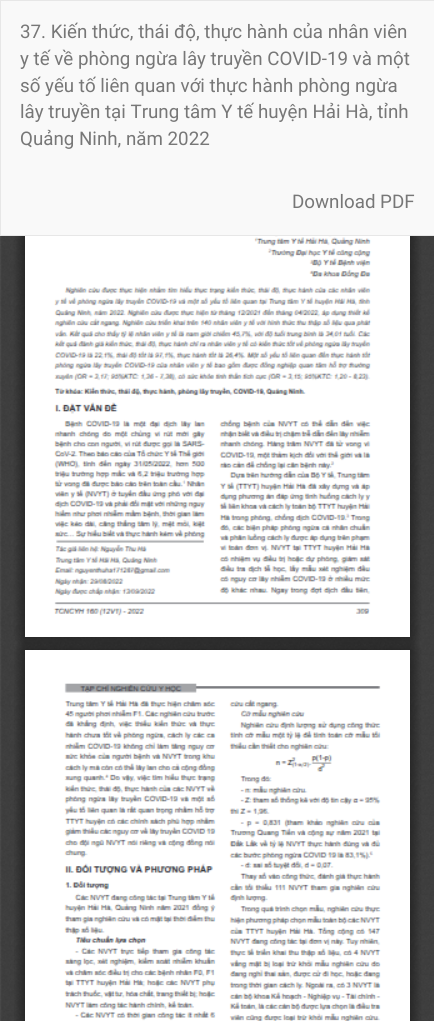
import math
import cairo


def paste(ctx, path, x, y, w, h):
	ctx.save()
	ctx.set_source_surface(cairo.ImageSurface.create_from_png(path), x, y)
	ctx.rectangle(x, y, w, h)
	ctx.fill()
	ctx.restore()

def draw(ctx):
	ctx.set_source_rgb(1, 1, 1)
	ctx.paint()
	ctx.set_source_rgb(0.973, 0.973, 0.973)
	ctx.rectangle(0.5, 0.5, 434, 235)
	ctx.fill_preserve()
	ctx.set_source_rgb(0.906, 0.906, 0.906)
	ctx.set_line_width(1)
	ctx.stroke()
	ctx.select_font_face('Roboto')
	ctx.set_font_size(18.75)
	ctx.set_source_rgb(0.467, 0.467, 0.467)
	for x, y, s in [
		(20, 38, '37. Kiến thức, thái độ, thực hành của nhân viên'),
		(20, 65, 'y tế về phòng ngừa lây truyền COVID-19 và một'),
		(20, 92, 'số yếu tố liên quan với thực hành phòng ngừa'),
		(20, 118, 'lây truyền tại Trung tâm Y tế huyện Hải Hà, tỉnh'),
		(20, 145, 'Quảng Ninh, năm 2022'),
		(292, 208, 'Download PDF'),
	]:
		ctx.move_to(x, y)
		ctx.show_text(s)
	paste(ctx, 'media/1.png', 0, 236, 434, 785)


surface = cairo.ImageSurface(cairo.FORMAT_RGB24, 434, 1021)
ctx = cairo.Context(surface)
options = cairo.FontOptions()
options.set_hint_metrics(cairo.HINT_METRICS_OFF)
options.set_hint_style(cairo.HINT_STYLE_NONE)
ctx.set_font_options(options)
ctx.set_miter_limit(4)
draw(ctx)
surface.write_to_png('image.png')
